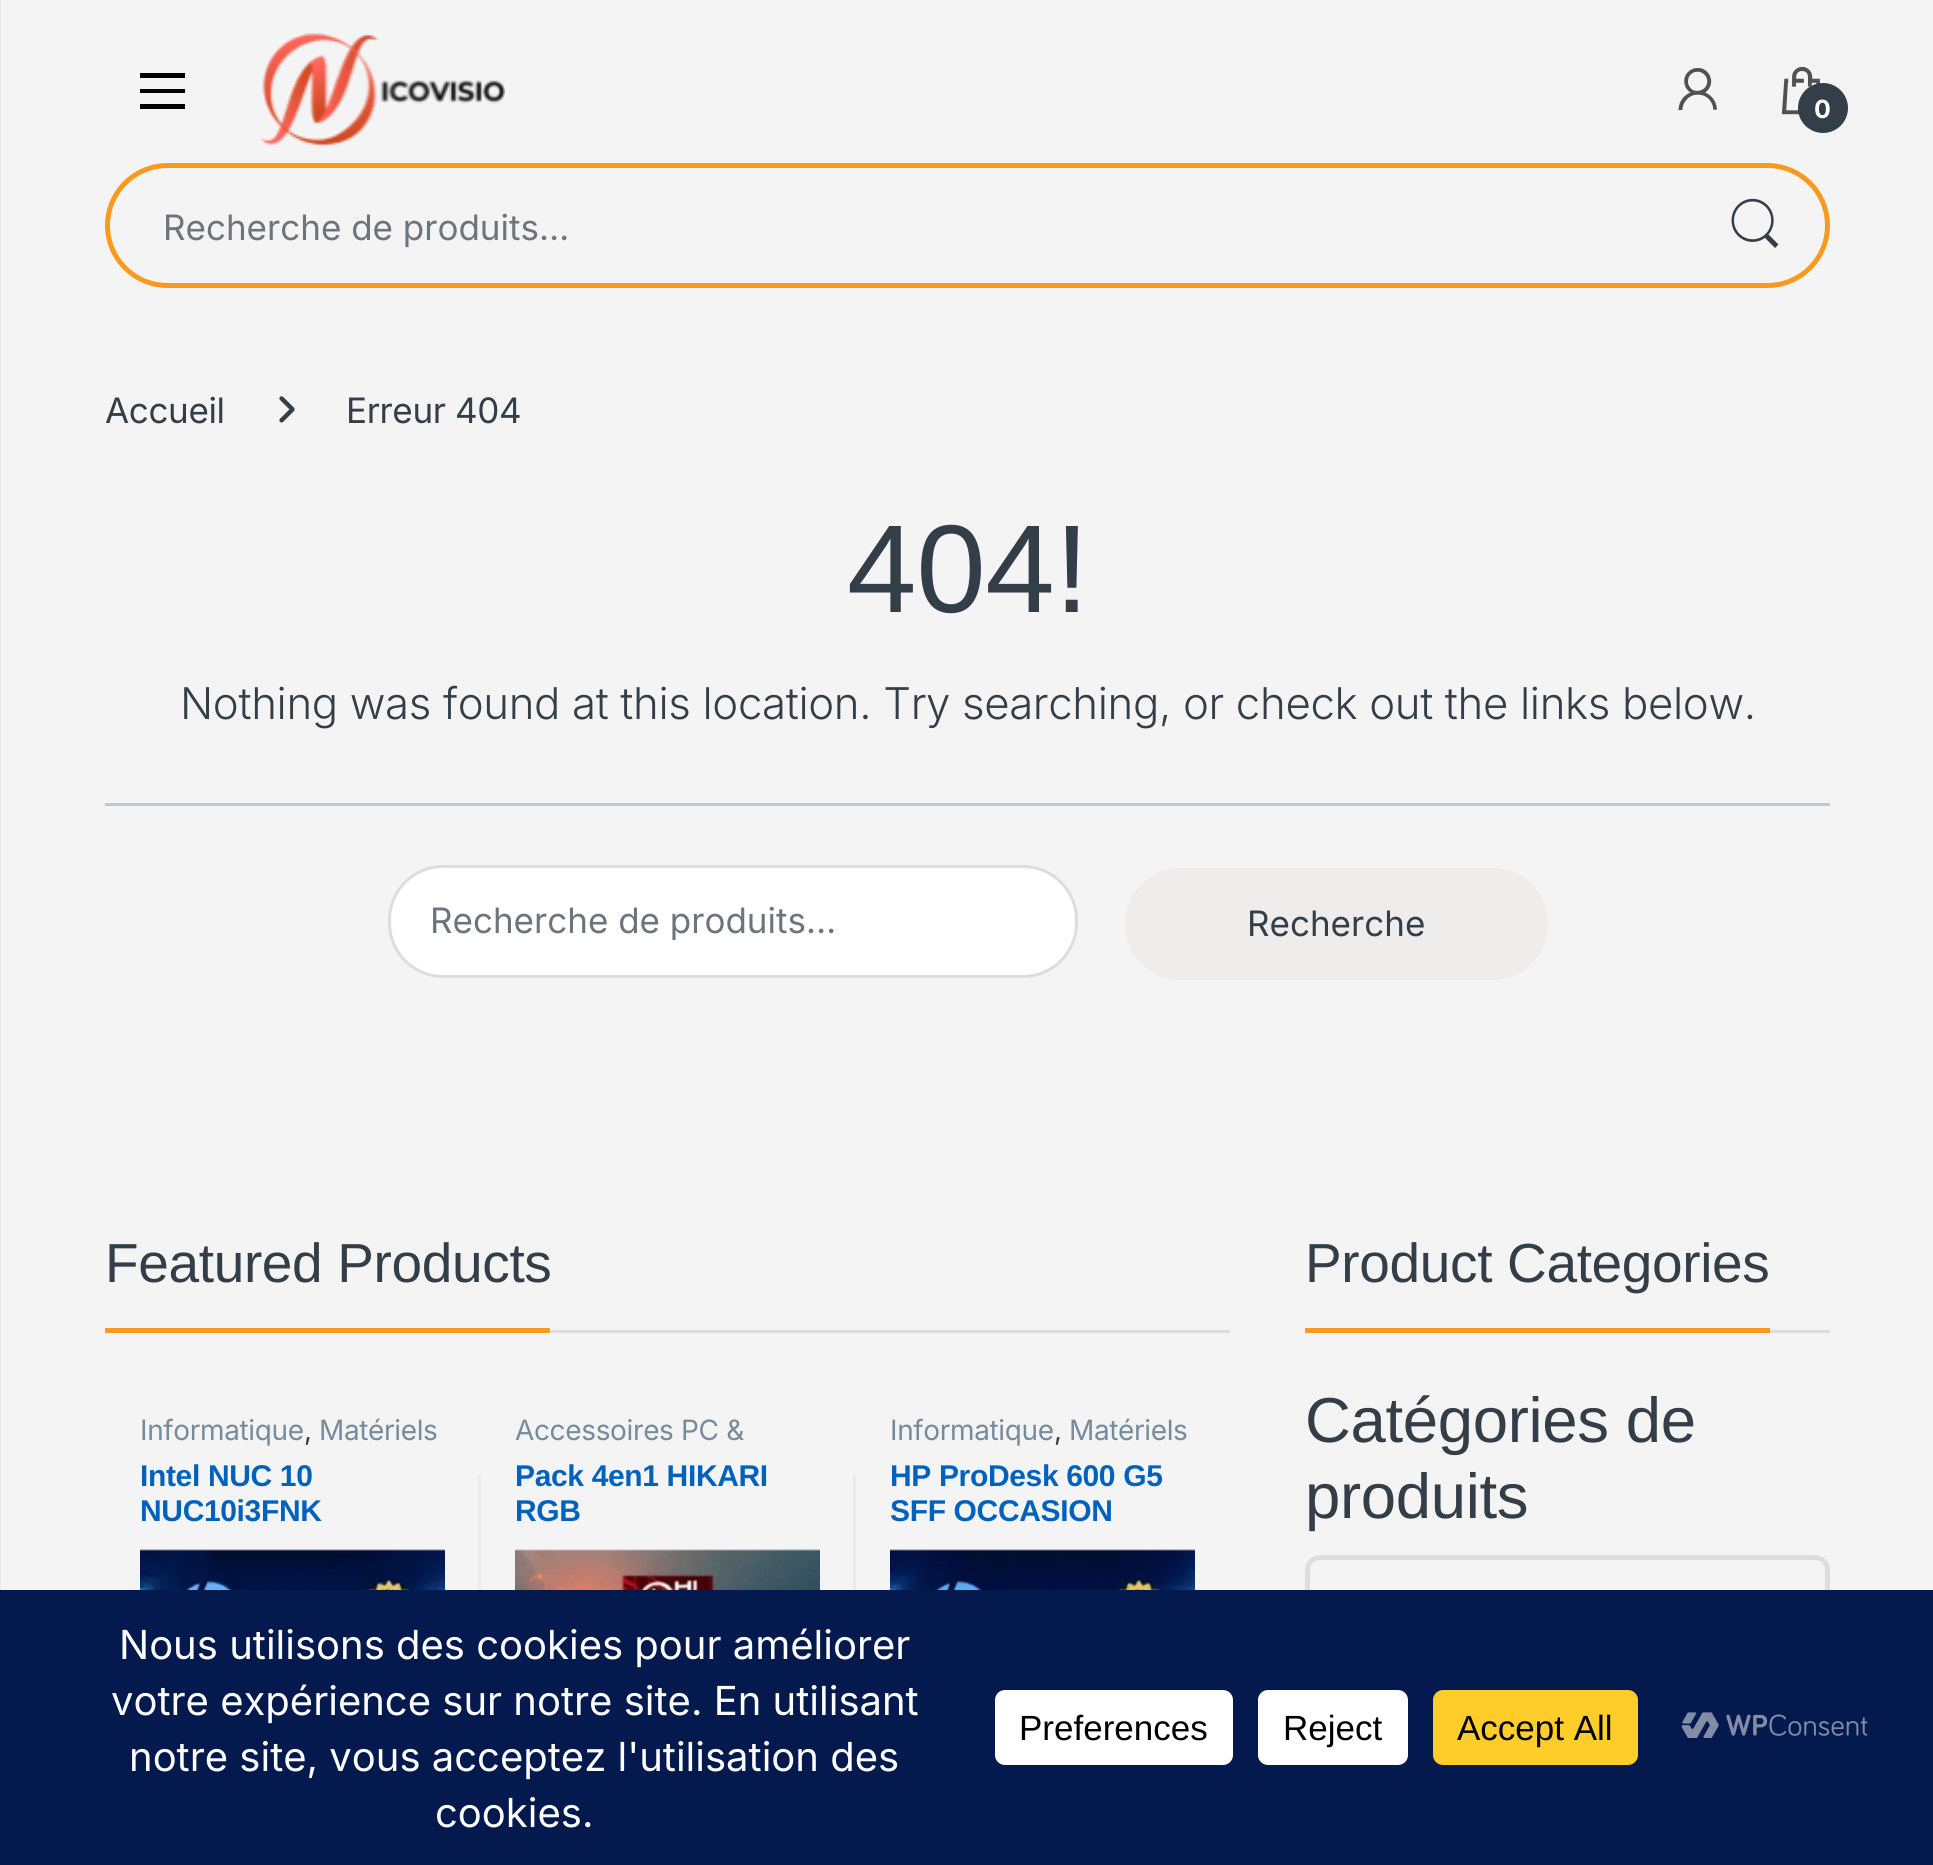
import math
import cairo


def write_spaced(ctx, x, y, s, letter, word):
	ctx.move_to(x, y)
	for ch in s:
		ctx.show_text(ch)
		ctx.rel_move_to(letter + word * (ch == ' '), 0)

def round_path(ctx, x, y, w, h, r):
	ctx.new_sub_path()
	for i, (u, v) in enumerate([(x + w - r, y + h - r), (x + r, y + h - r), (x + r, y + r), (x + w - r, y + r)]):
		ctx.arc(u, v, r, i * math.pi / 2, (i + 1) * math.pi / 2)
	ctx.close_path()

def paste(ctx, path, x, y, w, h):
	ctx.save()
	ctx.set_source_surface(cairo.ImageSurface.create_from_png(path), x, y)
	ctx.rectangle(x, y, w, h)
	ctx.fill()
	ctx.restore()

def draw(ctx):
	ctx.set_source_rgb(0.957, 0.957, 0.957)
	ctx.paint()
	ctx.set_source_rgb(0.89, 0.914, 0.937)
	ctx.rectangle(0, 0, 1, 1590)
	ctx.fill()
	ctx.set_source_rgb(0, 0, 0)
	ctx.new_path()
	ctx.move_to(140, 109)
	ctx.line_to(140, 104)
	ctx.line_to(185, 104)
	ctx.line_to(185, 109)
	ctx.close_path()
	ctx.move_to(140, 89)
	ctx.line_to(185, 89)
	ctx.line_to(185, 93)
	ctx.line_to(140, 93)
	ctx.close_path()
	ctx.move_to(140, 73)
	ctx.line_to(185, 73)
	ctx.line_to(185, 78)
	ctx.line_to(140, 78)
	ctx.close_path()
	ctx.fill()
	paste(ctx, 'media/1.png', 260, 33, 245, 114)
	paste(ctx, 'media/2.png', 1678, 68, 39, 43)
	paste(ctx, 'media/3.png', 1781, 66, 40, 49)
	ctx.set_source_rgb(0.2, 0.243, 0.282)
	ctx.arc(1823, 108, 25, 0, 2 * math.pi)
	ctx.fill()
	ctx.select_font_face('Inter', cairo.FONT_SLANT_NORMAL, cairo.FONT_WEIGHT_BOLD)
	ctx.set_font_size(25)
	ctx.set_source_rgb(1, 1, 1)
	write_spaced(ctx, 1814, 118, '0', -0.35, 0)
	round_path(ctx, 107.5, 165.5, 1720, 120, 60)
	ctx.set_source_rgb(0.973, 0.604, 0.125)
	ctx.set_line_width(5)
	ctx.stroke()
	ctx.select_font_face('Inter')
	ctx.set_font_size(35)
	ctx.set_source_rgb(0.424, 0.459, 0.49)
	ctx.move_to(163, 240)
	ctx.show_text('Recherche de produits…')
	paste(ctx, 'media/4.png', 1731, 198, 48, 50)
	ctx.set_source_rgb(0.2, 0.243, 0.282)
	write_spaced(ctx, 105, 423, 'Accueil', -0.35, 0)
	paste(ctx, 'media/5.png', 279, 396, 16, 27)
	write_spaced(ctx, 346, 423, 'Erreur 404', -0.35, 0)
	ctx.select_font_face('Liberation Sans')
	ctx.set_font_size(125)
	write_spaced(ctx, 847, 612, '404!', -0.35, 0)
	ctx.select_font_face('Inter Light')
	ctx.set_font_size(43.75)
	write_spaced(ctx, 180, 719, 'Nothing was found at this location. Try searching, or check out the links below.', -0.35, 0)
	ctx.set_source_rgb(0.769, 0.78, 0.788)
	ctx.rectangle(105, 803, 1725, 3)
	ctx.fill()
	ctx.set_source_rgb(1, 1, 1)
	round_path(ctx, 389.5, 866.5, 687, 110, 53.5)
	ctx.fill_preserve()
	ctx.set_source_rgb(0.867, 0.867, 0.867)
	ctx.set_line_width(3)
	ctx.stroke()
	ctx.save()
	ctx.rectangle(430, 898, 570, 42)
	ctx.clip()
	ctx.select_font_face('Inter')
	ctx.set_font_size(35)
	ctx.set_source_rgb(0.424, 0.459, 0.49)
	ctx.move_to(430, 933)
	ctx.show_text('Recherche de produits…')
	ctx.restore()
	ctx.set_source_rgb(0.937, 0.925, 0.925)
	round_path(ctx, 1125, 868, 423, 112, 55)
	ctx.fill()
	ctx.select_font_face('Inter')
	ctx.set_font_size(35)
	ctx.set_source_rgb(0.2, 0.243, 0.282)
	ctx.move_to(1247, 936)
	ctx.show_text('Recherche')
	ctx.set_source_rgb(0.867, 0.867, 0.867)
	ctx.rectangle(550, 1330, 680, 3)
	ctx.fill()
	ctx.select_font_face('Liberation Sans')
	ctx.set_font_size(55)
	ctx.set_source_rgb(0.2, 0.243, 0.282)
	write_spaced(ctx, 105, 1282, 'Featured Products', -0.35, 0)
	ctx.set_source_rgb(0.973, 0.604, 0.125)
	ctx.rectangle(105, 1328, 445, 5)
	ctx.fill()
	ctx.select_font_face('Inter')
	ctx.set_font_size(28)
	ctx.set_source_rgb(0.463, 0.545, 0.62)
	write_spaced(ctx, 140, 1440, 'Informatique', -0.35, 0)
	ctx.set_source_rgb(0.2, 0.243, 0.282)
	write_spaced(ctx, 304, 1440, ',', -0.35, 0)
	ctx.set_source_rgb(0.463, 0.545, 0.62)
	write_spaced(ctx, 319, 1440, 'Matériels', -0.35, 0)
	ctx.select_font_face('Liberation Sans', cairo.FONT_SLANT_NORMAL, cairo.FONT_WEIGHT_BOLD)
	ctx.set_font_size(30)
	ctx.set_source_rgb(0, 0.384, 0.741)
	write_spaced(ctx, 140, 1486, 'Intel NUC 10', -0.35, 0)
	write_spaced(ctx, 140, 1521, 'NUC10i3FNK', -0.35, 0)
	paste(ctx, 'media/6.png', 140, 1549, 305, 41)
	ctx.set_source_rgb(0.918, 0.918, 0.918)
	ctx.rectangle(478, 1475, 3, 115)
	ctx.fill()
	ctx.select_font_face('Inter')
	ctx.set_font_size(28)
	ctx.set_source_rgb(0.463, 0.545, 0.62)
	write_spaced(ctx, 515, 1440, 'Accessoires PC &', -0.35, 0)
	ctx.select_font_face('Liberation Sans', cairo.FONT_SLANT_NORMAL, cairo.FONT_WEIGHT_BOLD)
	ctx.set_font_size(30)
	ctx.set_source_rgb(0, 0.384, 0.741)
	write_spaced(ctx, 515, 1486, 'Pack 4en1 HIKARI', -0.35, 0)
	write_spaced(ctx, 515, 1521, 'RGB', -0.35, 0)
	paste(ctx, 'media/7.png', 515, 1549, 305, 41)
	ctx.set_source_rgb(0.918, 0.918, 0.918)
	ctx.rectangle(853, 1475, 3, 115)
	ctx.fill()
	ctx.select_font_face('Inter')
	ctx.set_font_size(28)
	ctx.set_source_rgb(0.463, 0.545, 0.62)
	write_spaced(ctx, 890, 1440, 'Informatique', -0.35, 0)
	ctx.set_source_rgb(0.2, 0.243, 0.282)
	write_spaced(ctx, 1054, 1440, ',', -0.35, 0)
	ctx.set_source_rgb(0.463, 0.545, 0.62)
	write_spaced(ctx, 1069, 1440, 'Matériels', -0.35, 0)
	ctx.select_font_face('Liberation Sans', cairo.FONT_SLANT_NORMAL, cairo.FONT_WEIGHT_BOLD)
	ctx.set_font_size(30)
	ctx.set_source_rgb(0, 0.384, 0.741)
	write_spaced(ctx, 890, 1486, 'HP ProDesk 600 G5', -0.35, 0)
	write_spaced(ctx, 890, 1521, 'SFF OCCASION', -0.35, 0)
	paste(ctx, 'media/8.png', 890, 1549, 305, 41)
	ctx.set_source_rgb(0.867, 0.867, 0.867)
	ctx.rectangle(1770, 1330, 60, 3)
	ctx.fill()
	ctx.select_font_face('Liberation Sans')
	ctx.set_font_size(55)
	ctx.set_source_rgb(0.2, 0.243, 0.282)
	write_spaced(ctx, 1305, 1282, 'Product Categories', -0.35, 0)
	ctx.set_source_rgb(0.973, 0.604, 0.125)
	ctx.rectangle(1305, 1328, 465, 5)
	ctx.fill()
	ctx.set_font_size(63.5)
	ctx.set_source_rgb(0.2, 0.243, 0.282)
	write_spaced(ctx, 1305, 1442, 'Catégories de', -0.35, 0)
	write_spaced(ctx, 1305, 1518, 'produits', -0.35, 0)
	round_path(ctx, 1307.5, 1557.5, 520, 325, 12.5)
	ctx.set_source_rgb(0.867, 0.867, 0.867)
	ctx.set_line_width(5)
	ctx.stroke()
	ctx.set_source_rgb(0.016, 0.098, 0.306)
	ctx.rectangle(0, 1590, 1933, 275)
	ctx.fill()
	ctx.select_font_face('Inter')
	ctx.set_font_size(40)
	ctx.set_source_rgb(1, 1, 1)
	for x, y, s in [
		(119, 1659, 'Nous utilisons des cookies pour améliorer'),
		(111, 1715, 'votre expérience sur notre site. En utilisant'),
		(129, 1771, 'notre site, vous acceptez l\'utilisation des'),
		(435, 1827, 'cookies.'),
	]:
		ctx.move_to(x, y)
		ctx.show_text(s)
	round_path(ctx, 995, 1690, 238, 75, 10)
	ctx.fill()
	ctx.select_font_face('Liberation Sans')
	ctx.set_font_size(35)
	ctx.set_source_rgb(0, 0, 0)
	ctx.move_to(1019, 1740)
	ctx.show_text('Preferences')
	ctx.set_source_rgb(1, 1, 1)
	round_path(ctx, 1258, 1690, 150, 75, 10)
	ctx.fill()
	ctx.set_source_rgb(0, 0, 0)
	ctx.move_to(1283, 1740)
	ctx.show_text('Reject')
	ctx.set_source_rgb(1, 0.804, 0.165)
	round_path(ctx, 1433, 1690, 205, 75, 10)
	ctx.fill()
	ctx.set_source_rgb(0, 0, 0)
	ctx.move_to(1457, 1740)
	ctx.show_text('Accept All')
	paste(ctx, 'media/9.png', 1681, 1712, 187, 26)


surface = cairo.ImageSurface(cairo.FORMAT_RGB24, 1933, 1865)
ctx = cairo.Context(surface)
options = cairo.FontOptions()
options.set_hint_metrics(cairo.HINT_METRICS_OFF)
options.set_hint_style(cairo.HINT_STYLE_NONE)
ctx.set_font_options(options)
ctx.set_miter_limit(4)
draw(ctx)
surface.write_to_png('image.png')
